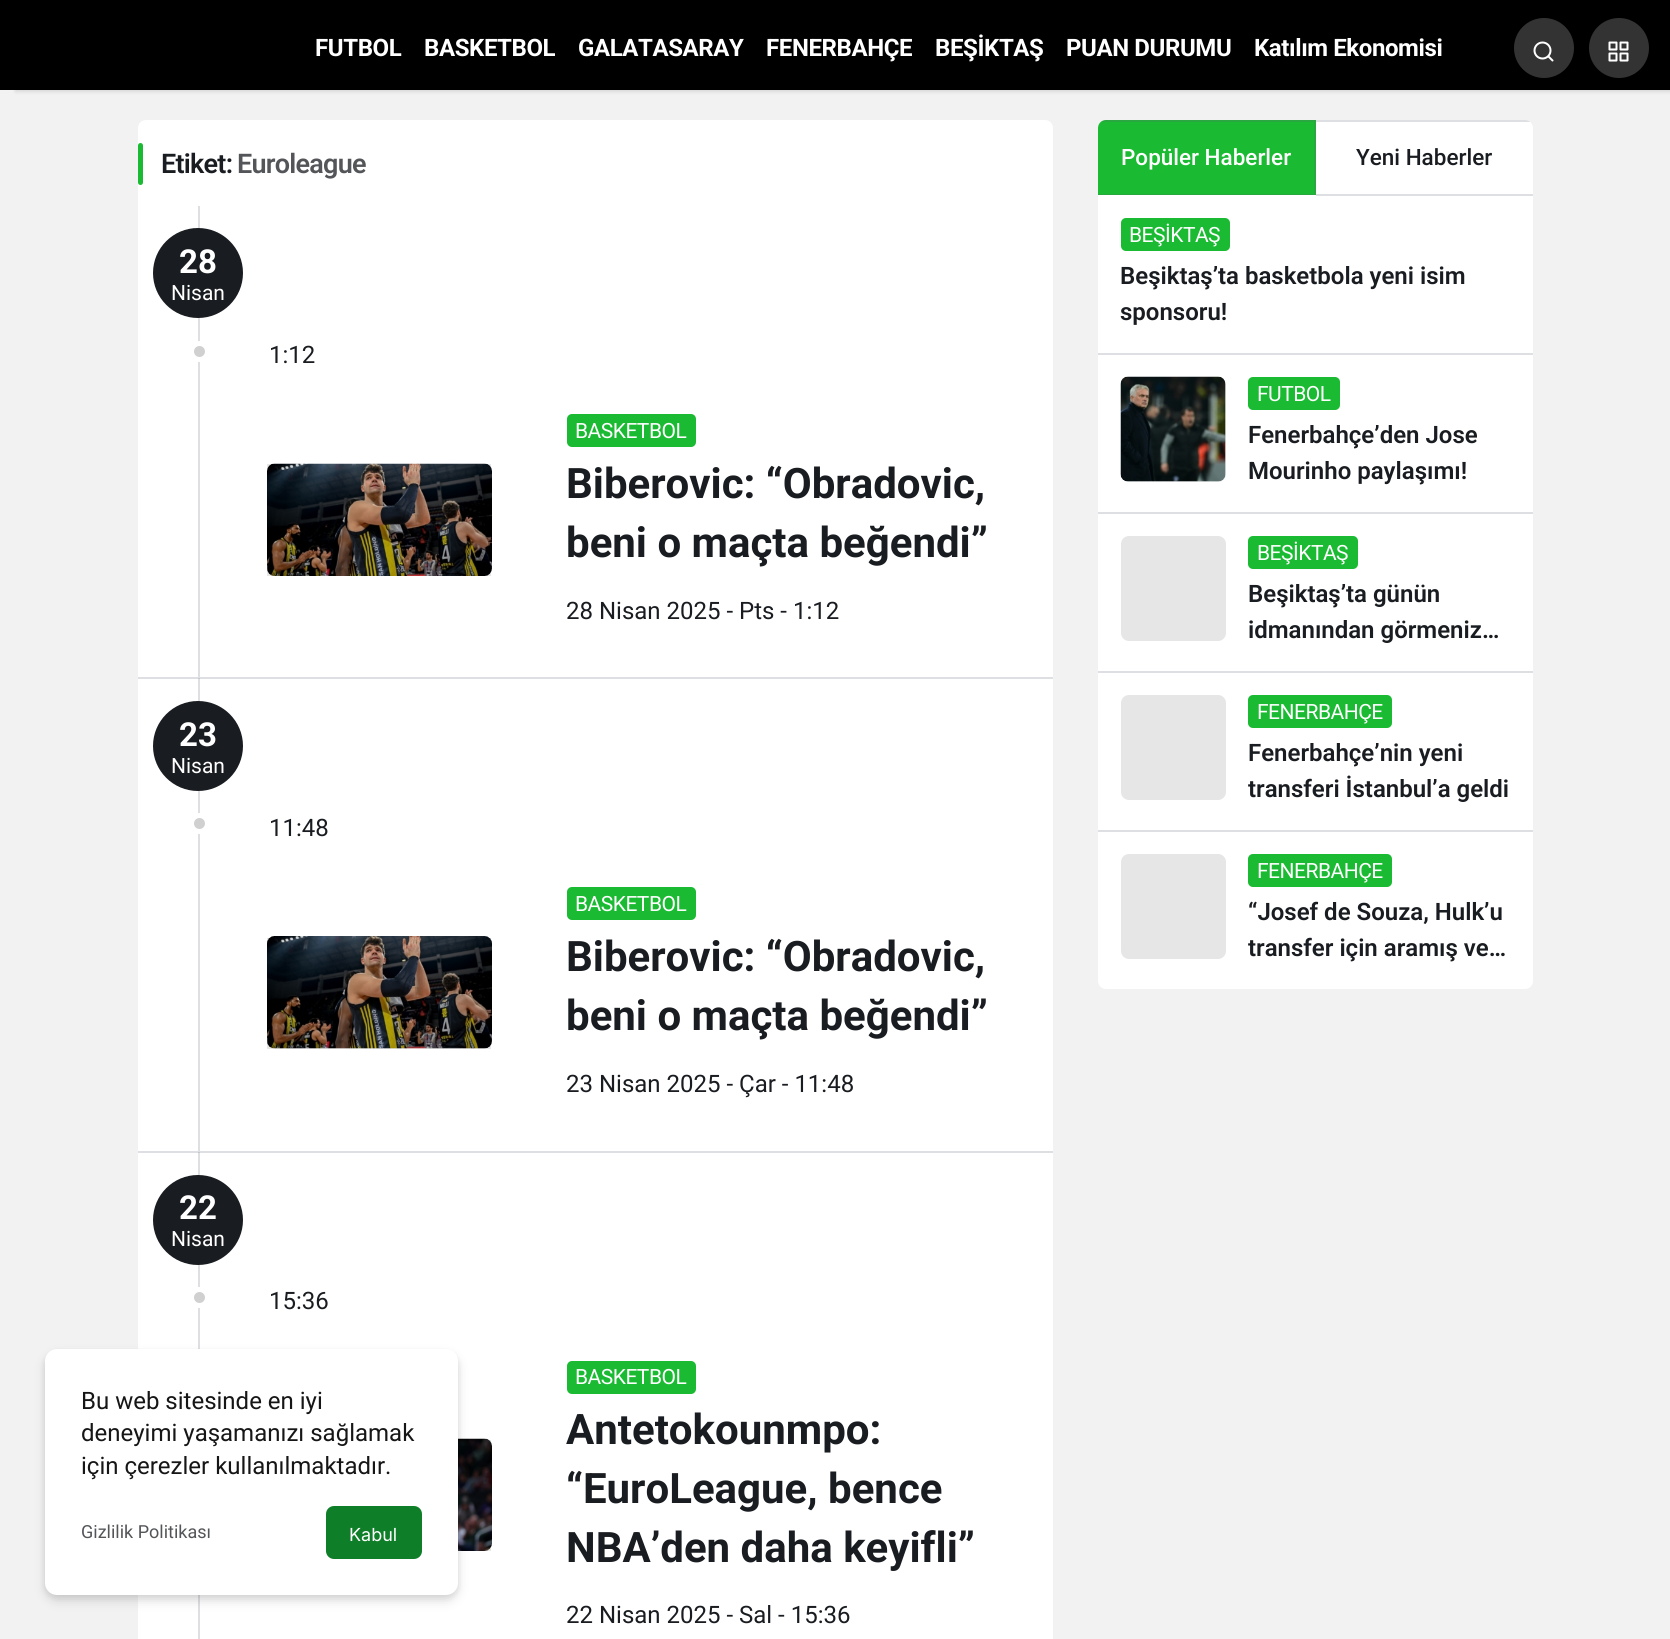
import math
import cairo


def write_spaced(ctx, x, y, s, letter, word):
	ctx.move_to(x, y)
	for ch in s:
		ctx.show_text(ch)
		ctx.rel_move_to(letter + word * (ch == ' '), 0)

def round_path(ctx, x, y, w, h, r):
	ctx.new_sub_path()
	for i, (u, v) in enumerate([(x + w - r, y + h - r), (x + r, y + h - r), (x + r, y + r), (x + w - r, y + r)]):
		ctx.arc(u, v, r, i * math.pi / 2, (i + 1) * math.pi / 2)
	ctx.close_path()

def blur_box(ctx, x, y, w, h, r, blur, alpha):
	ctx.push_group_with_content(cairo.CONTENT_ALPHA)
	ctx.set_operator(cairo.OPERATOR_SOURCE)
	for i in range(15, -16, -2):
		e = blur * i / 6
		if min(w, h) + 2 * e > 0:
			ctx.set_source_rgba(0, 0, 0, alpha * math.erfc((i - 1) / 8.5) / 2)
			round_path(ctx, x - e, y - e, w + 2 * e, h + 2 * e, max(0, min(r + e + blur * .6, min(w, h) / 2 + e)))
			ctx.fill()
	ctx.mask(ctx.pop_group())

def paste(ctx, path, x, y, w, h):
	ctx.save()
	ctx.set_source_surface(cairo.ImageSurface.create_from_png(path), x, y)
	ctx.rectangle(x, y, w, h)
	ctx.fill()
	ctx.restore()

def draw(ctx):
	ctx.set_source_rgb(0.949, 0.949, 0.953)
	ctx.paint()
	ctx.set_source_rgb(0, 0, 0)
	blur_box(ctx, 15, 2, 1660, 90, 0, 1.5, 0.1)
	ctx.set_source_rgb(0, 0, 0)
	ctx.rectangle(0, 0, 1670, 90)
	ctx.fill()
	ctx.select_font_face('Roboto', cairo.FONT_SLANT_NORMAL, cairo.FONT_WEIGHT_BOLD)
	ctx.set_font_size(24)
	ctx.set_source_rgb(1, 1, 1)
	for x, y, s in [
		(315, 56, 'FUTBOL'),
		(424, 56, 'BASKETBOL'),
		(578, 56, 'GALATASARAY'),
		(766, 56, 'FENERBAHÇE'),
		(935, 56, 'BEŞİKTAŞ'),
		(1066, 56, 'PUAN DURUMU'),
		(1254, 56, 'Katılım Ekonomisi'),
	]:
		write_spaced(ctx, x, y, s, -0.4, 0)
	ctx.set_source_rgb(0.2, 0.2, 0.2)
	ctx.new_path()
	ctx.arc(1544, 48, 30, 0, 2 * math.pi)
	ctx.fill()
	paste(ctx, 'media/1.png', 1533, 41, 21, 21)
	ctx.arc(1619, 48, 30, 0, 2 * math.pi)
	ctx.fill()
	paste(ctx, 'media/2.png', 1608, 41, 21, 21)
	ctx.set_source_rgb(1, 1, 1)
	round_path(ctx, 138, 120, 915, 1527, 8)
	ctx.fill()
	ctx.set_source_rgb(0.871, 0.875, 0.886)
	ctx.rectangle(198, 1152, 2, 487)
	ctx.fill()
	ctx.rectangle(198, 678, 2, 473)
	ctx.fill()
	ctx.set_source_rgb(0.106, 0.729, 0.2)
	round_path(ctx, 138, 143, 5, 42, 2.5)
	ctx.fill()
	ctx.select_font_face('Roboto SemiBold')
	ctx.set_font_size(27)
	ctx.set_source_rgb(0.098, 0.11, 0.125)
	write_spaced(ctx, 161, 173, 'Etiket:', -0.75, 0)
	ctx.set_source_rgb(0.325, 0.333, 0.345)
	write_spaced(ctx, 237, 173, 'Euroleague', -0.75, 0)
	ctx.set_source_rgb(0.871, 0.875, 0.886)
	ctx.rectangle(138, 677, 915, 2)
	ctx.fill()
	ctx.set_source_rgb(0.769, 0.776, 0.796)
	ctx.rectangle(198, 678, 2, 1)
	ctx.fill()
	ctx.set_source_rgb(0.871, 0.875, 0.886)
	ctx.rectangle(198, 206, 2, 471)
	ctx.fill()
	ctx.set_source_rgb(0.098, 0.11, 0.125)
	ctx.arc(198, 273, 45, 0, 2 * math.pi)
	ctx.fill()
	ctx.select_font_face('Roboto', cairo.FONT_SLANT_NORMAL, cairo.FONT_WEIGHT_BOLD)
	ctx.set_font_size(33)
	ctx.set_source_rgb(1, 1, 1)
	ctx.move_to(179, 273)
	ctx.show_text('28')
	ctx.select_font_face('Roboto')
	ctx.set_font_size(21)
	ctx.move_to(171, 300)
	ctx.show_text('Nisan')
	ctx.set_source_rgb(0.816, 0.816, 0.816)
	ctx.new_path()
	ctx.arc(199.5, 351.5, 8, 0, 2 * math.pi)
	ctx.fill_preserve()
	ctx.set_source_rgb(1, 1, 1)
	ctx.set_line_width(5)
	ctx.stroke()
	ctx.set_font_size(24)
	ctx.set_source_rgb(0.098, 0.11, 0.125)
	ctx.move_to(269, 363)
	ctx.show_text('1:12')
	ctx.set_source_rgb(0.902, 0.902, 0.902)
	ctx.rectangle(267, 464, 224, 112)
	ctx.fill()
	paste(ctx, 'media/3.png', 267, 463, 225, 113)
	ctx.set_source_rgb(0.106, 0.729, 0.2)
	round_path(ctx, 567, 414, 129, 33, 5)
	ctx.fill()
	ctx.set_font_size(21)
	ctx.set_source_rgb(1, 1, 1)
	write_spaced(ctx, 575, 438, 'BASKETBOL', -0.5, 0)
	ctx.select_font_face('Roboto', cairo.FONT_SLANT_NORMAL, cairo.FONT_WEIGHT_BOLD)
	ctx.set_font_size(42)
	ctx.set_source_rgb(0.098, 0.11, 0.125)
	ctx.move_to(566, 498)
	ctx.show_text('Biberovic: “Obradovic,')
	ctx.move_to(566, 557)
	ctx.show_text('beni o maçta beğendi”')
	ctx.select_font_face('Roboto')
	ctx.set_font_size(24)
	ctx.move_to(566, 619)
	ctx.show_text('28 Nisan 2025 - Pts - 1:12')
	ctx.set_source_rgb(0.871, 0.875, 0.886)
	ctx.rectangle(138, 1151, 915, 2)
	ctx.fill()
	ctx.set_source_rgb(0.769, 0.776, 0.796)
	ctx.rectangle(198, 1152, 2, 1)
	ctx.fill()
	ctx.set_source_rgb(0.098, 0.11, 0.125)
	ctx.arc(198, 746, 45, 0, 2 * math.pi)
	ctx.fill()
	ctx.select_font_face('Roboto', cairo.FONT_SLANT_NORMAL, cairo.FONT_WEIGHT_BOLD)
	ctx.set_font_size(33)
	ctx.set_source_rgb(1, 1, 1)
	ctx.move_to(179, 746)
	ctx.show_text('23')
	ctx.select_font_face('Roboto')
	ctx.set_font_size(21)
	ctx.move_to(171, 773)
	ctx.show_text('Nisan')
	ctx.set_source_rgb(0.816, 0.816, 0.816)
	ctx.new_path()
	ctx.arc(199.5, 823.5, 8, 0, 2 * math.pi)
	ctx.fill_preserve()
	ctx.set_source_rgb(1, 1, 1)
	ctx.stroke()
	ctx.set_font_size(24)
	ctx.set_source_rgb(0.098, 0.11, 0.125)
	ctx.move_to(269, 836)
	ctx.show_text('11:48')
	ctx.set_source_rgb(0.902, 0.902, 0.902)
	ctx.rectangle(267, 938, 224, 111)
	ctx.fill()
	paste(ctx, 'media/4.png', 267, 936, 225, 113)
	ctx.set_source_rgb(0.106, 0.729, 0.2)
	round_path(ctx, 567, 887, 129, 33, 5)
	ctx.fill()
	ctx.set_font_size(21)
	ctx.set_source_rgb(1, 1, 1)
	write_spaced(ctx, 575, 911, 'BASKETBOL', -0.5, 0)
	ctx.select_font_face('Roboto', cairo.FONT_SLANT_NORMAL, cairo.FONT_WEIGHT_BOLD)
	ctx.set_font_size(42)
	ctx.set_source_rgb(0.098, 0.11, 0.125)
	ctx.move_to(566, 971)
	ctx.show_text('Biberovic: “Obradovic,')
	ctx.move_to(566, 1030)
	ctx.show_text('beni o maçta beğendi”')
	ctx.select_font_face('Roboto')
	ctx.set_font_size(24)
	ctx.move_to(566, 1092)
	ctx.show_text('23 Nisan 2025 - Çar - 11:48')
	ctx.new_path()
	ctx.arc(198, 1220, 45, 0, 2 * math.pi)
	ctx.fill()
	ctx.select_font_face('Roboto', cairo.FONT_SLANT_NORMAL, cairo.FONT_WEIGHT_BOLD)
	ctx.set_font_size(33)
	ctx.set_source_rgb(1, 1, 1)
	ctx.move_to(179, 1219)
	ctx.show_text('22')
	ctx.select_font_face('Roboto')
	ctx.set_font_size(21)
	ctx.move_to(171, 1246)
	ctx.show_text('Nisan')
	ctx.set_source_rgb(0.816, 0.816, 0.816)
	ctx.new_path()
	ctx.arc(199.5, 1297.5, 8, 0, 2 * math.pi)
	ctx.fill_preserve()
	ctx.set_source_rgb(1, 1, 1)
	ctx.stroke()
	ctx.set_font_size(24)
	ctx.set_source_rgb(0.098, 0.11, 0.125)
	ctx.move_to(269, 1309)
	ctx.show_text('15:36')
	ctx.set_source_rgb(0.902, 0.902, 0.902)
	ctx.rectangle(485, 1440, 6, 111)
	ctx.fill()
	paste(ctx, 'media/5.png', 458, 1438, 34, 113)
	ctx.set_source_rgb(0.106, 0.729, 0.2)
	round_path(ctx, 567, 1361, 129, 33, 5)
	ctx.fill()
	ctx.set_font_size(21)
	ctx.set_source_rgb(1, 1, 1)
	write_spaced(ctx, 575, 1384, 'BASKETBOL', -0.5, 0)
	ctx.select_font_face('Roboto', cairo.FONT_SLANT_NORMAL, cairo.FONT_WEIGHT_BOLD)
	ctx.set_font_size(42)
	ctx.set_source_rgb(0.098, 0.11, 0.125)
	for x, y, s in [
		(566, 1444, 'Antetokounmpo:'),
		(566, 1503, '“EuroLeague, bence'),
		(566, 1562, 'NBA’den daha keyifli”'),
	]:
		ctx.move_to(x, y)
		ctx.show_text(s)
	ctx.select_font_face('Roboto')
	ctx.set_font_size(24)
	ctx.move_to(566, 1623)
	ctx.show_text('22 Nisan 2025 - Sal - 15:36')
	ctx.set_source_rgb(1, 1, 1)
	round_path(ctx, 1098, 120, 435, 869, 8)
	ctx.fill()
	ctx.set_source_rgb(0.106, 0.729, 0.2)
	ctx.new_path()
	ctx.move_to(1106, 120)
	ctx.line_to(1316, 120)
	ctx.line_to(1316, 195)
	ctx.line_to(1098, 195)
	ctx.line_to(1098, 128)
	ctx.curve_to(1098, 123.5, 1101.5, 120, 1106, 120)
	ctx.close_path()
	ctx.fill()
	ctx.set_source_rgba(0.357, 0.38, 0.431, 0.2)
	ctx.new_path()
	ctx.move_to(1106, 120)
	ctx.curve_to(1104, 120, 1102, 121, 1101, 122)
	ctx.line_to(1314, 122)
	ctx.line_to(1316, 120)
	ctx.close_path()
	ctx.fill()
	ctx.new_path()
	ctx.move_to(1316, 120)
	ctx.line_to(1316, 195)
	ctx.line_to(1314, 194)
	ctx.line_to(1314, 122)
	ctx.close_path()
	ctx.fill()
	ctx.new_path()
	ctx.move_to(1316, 195)
	ctx.line_to(1098, 195)
	ctx.line_to(1098, 194)
	ctx.line_to(1314, 194)
	ctx.close_path()
	ctx.fill()
	ctx.select_font_face('Roboto Medium')
	ctx.set_font_size(22.5)
	ctx.set_source_rgb(1, 1, 1)
	ctx.move_to(1121, 165)
	ctx.show_text('Popüler Haberler')
	ctx.save()
	round_path(ctx, 1098, 120, 435, 869, 8)
	ctx.clip()
	ctx.set_source_rgba(0.357, 0.38, 0.431, 0.2)
	ctx.rectangle(1316, 120, 217, 2)
	ctx.fill()
	ctx.restore()
	ctx.set_source_rgb(0.871, 0.875, 0.886)
	ctx.rectangle(1316, 194, 217, 2)
	ctx.fill()
	ctx.set_source_rgb(0.098, 0.11, 0.125)
	ctx.move_to(1356, 165)
	ctx.show_text('Yeni Haberler')
	ctx.set_source_rgb(0.871, 0.875, 0.886)
	ctx.rectangle(1098, 353, 435, 2)
	ctx.fill()
	ctx.set_source_rgb(0.106, 0.729, 0.2)
	round_path(ctx, 1121, 218, 109, 33, 5)
	ctx.fill()
	ctx.select_font_face('Roboto')
	ctx.set_font_size(21)
	ctx.set_source_rgb(1, 1, 1)
	write_spaced(ctx, 1129, 242, 'BEŞİKTAŞ', -0.5, 0)
	ctx.select_font_face('Roboto SemiBold')
	ctx.set_font_size(24)
	ctx.set_source_rgb(0.098, 0.11, 0.125)
	ctx.move_to(1120, 284)
	ctx.show_text('Beşiktaş’ta basketbola yeni isim')
	ctx.move_to(1120, 320)
	ctx.show_text('sponsoru!')
	ctx.set_source_rgb(0.871, 0.875, 0.886)
	ctx.rectangle(1098, 512, 435, 2)
	ctx.fill()
	ctx.set_source_rgb(0.902, 0.902, 0.902)
	round_path(ctx, 1121, 377, 105, 105, 8)
	ctx.fill()
	paste(ctx, 'media/6.png', 1120, 376, 106, 106)
	ctx.set_source_rgb(0.106, 0.729, 0.2)
	round_path(ctx, 1248, 377, 92, 33, 5)
	ctx.fill()
	ctx.select_font_face('Roboto')
	ctx.set_font_size(21)
	ctx.set_source_rgb(1, 1, 1)
	write_spaced(ctx, 1257, 401, 'FUTBOL', -0.5, 0)
	ctx.select_font_face('Roboto SemiBold')
	ctx.set_font_size(24)
	ctx.set_source_rgb(0.098, 0.11, 0.125)
	ctx.move_to(1248, 443)
	ctx.show_text('Fenerbahçe’den Jose')
	ctx.move_to(1248, 479)
	ctx.show_text('Mourinho paylaşımı!')
	ctx.set_source_rgb(0.871, 0.875, 0.886)
	ctx.rectangle(1098, 671, 435, 2)
	ctx.fill()
	ctx.set_source_rgb(0.902, 0.902, 0.902)
	round_path(ctx, 1121, 536, 105, 105, 8)
	ctx.fill()
	ctx.set_source_rgb(0.106, 0.729, 0.2)
	round_path(ctx, 1248, 536, 110, 33, 5)
	ctx.fill()
	ctx.select_font_face('Roboto')
	ctx.set_font_size(21)
	ctx.set_source_rgb(1, 1, 1)
	write_spaced(ctx, 1257, 560, 'BEŞİKTAŞ', -0.5, 0)
	ctx.select_font_face('Roboto SemiBold')
	ctx.set_font_size(24)
	ctx.set_source_rgb(0.098, 0.11, 0.125)
	ctx.move_to(1248, 602)
	ctx.show_text('Beşiktaş’ta günün')
	ctx.move_to(1248, 638)
	ctx.show_text('idmanından görmeniz…')
	ctx.set_source_rgb(0.871, 0.875, 0.886)
	ctx.rectangle(1098, 830, 435, 2)
	ctx.fill()
	ctx.set_source_rgb(0.902, 0.902, 0.902)
	round_path(ctx, 1121, 695, 105, 105, 8)
	ctx.fill()
	ctx.set_source_rgb(0.106, 0.729, 0.2)
	round_path(ctx, 1248, 695, 144, 33, 5)
	ctx.fill()
	ctx.select_font_face('Roboto')
	ctx.set_font_size(21)
	ctx.set_source_rgb(1, 1, 1)
	write_spaced(ctx, 1257, 719, 'FENERBAHÇE', -0.5, 0)
	ctx.select_font_face('Roboto SemiBold')
	ctx.set_font_size(24)
	ctx.set_source_rgb(0.098, 0.11, 0.125)
	ctx.move_to(1248, 761)
	ctx.show_text('Fenerbahçe’nin yeni')
	ctx.move_to(1248, 797)
	ctx.show_text('transferi İstanbul’a geldi')
	ctx.set_source_rgb(0.902, 0.902, 0.902)
	round_path(ctx, 1121, 854, 105, 105, 8)
	ctx.fill()
	ctx.set_source_rgb(0.106, 0.729, 0.2)
	round_path(ctx, 1248, 854, 144, 33, 5)
	ctx.fill()
	ctx.select_font_face('Roboto')
	ctx.set_font_size(21)
	ctx.set_source_rgb(1, 1, 1)
	write_spaced(ctx, 1257, 878, 'FENERBAHÇE', -0.5, 0)
	ctx.select_font_face('Roboto SemiBold')
	ctx.set_font_size(24)
	ctx.set_source_rgb(0.098, 0.11, 0.125)
	ctx.move_to(1248, 920)
	ctx.show_text('“Josef de Souza, Hulk’u')
	ctx.move_to(1248, 956)
	ctx.show_text('transfer için aramış ve…')
	ctx.set_source_rgb(0, 0, 0)
	blur_box(ctx, 45, 1352, 413, 246, 12, 3, 0.08)
	blur_box(ctx, 45, 1355, 413, 246, 12, 6, 0.12)
	ctx.set_source_rgb(1, 1, 1)
	round_path(ctx, 45, 1349, 413, 246, 12)
	ctx.fill()
	ctx.select_font_face('Roboto')
	ctx.set_source_rgb(0.086, 0.086, 0.086)
	for x, y, s in [
		(81, 1409, 'Bu web sitesinde en iyi'),
		(81, 1441, 'deneyimi yaşamanızı sağlamak'),
		(81, 1474, 'için çerezler kullanılmaktadır.'),
	]:
		ctx.move_to(x, y)
		ctx.show_text(s)
	ctx.set_font_size(18)
	ctx.set_source_rgb(0.325, 0.333, 0.345)
	ctx.move_to(81, 1538)
	ctx.show_text('Gizlilik Politikası')
	ctx.set_source_rgb(0.059, 0.494, 0.161)
	round_path(ctx, 326, 1506, 96, 53, 8)
	ctx.fill()
	ctx.select_font_face('Inter')
	ctx.set_source_rgb(1, 1, 1)
	ctx.move_to(349, 1541)
	ctx.show_text('Kabul')


surface = cairo.ImageSurface(cairo.FORMAT_RGB24, 1670, 1639)
ctx = cairo.Context(surface)
options = cairo.FontOptions()
options.set_hint_metrics(cairo.HINT_METRICS_OFF)
options.set_hint_style(cairo.HINT_STYLE_NONE)
ctx.set_font_options(options)
ctx.set_miter_limit(4)
draw(ctx)
surface.write_to_png('image.png')
